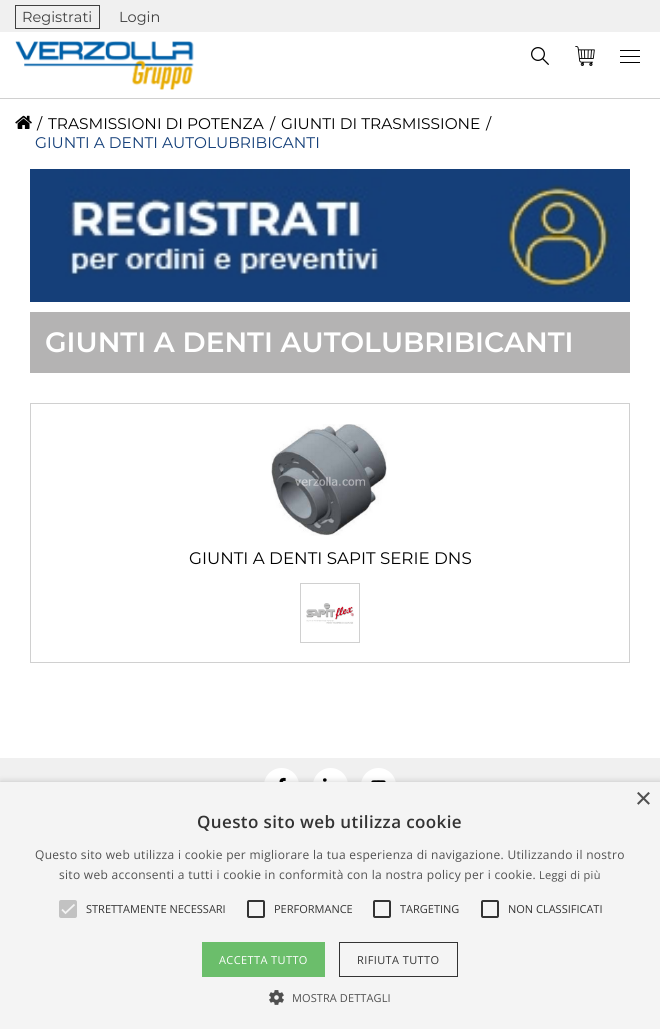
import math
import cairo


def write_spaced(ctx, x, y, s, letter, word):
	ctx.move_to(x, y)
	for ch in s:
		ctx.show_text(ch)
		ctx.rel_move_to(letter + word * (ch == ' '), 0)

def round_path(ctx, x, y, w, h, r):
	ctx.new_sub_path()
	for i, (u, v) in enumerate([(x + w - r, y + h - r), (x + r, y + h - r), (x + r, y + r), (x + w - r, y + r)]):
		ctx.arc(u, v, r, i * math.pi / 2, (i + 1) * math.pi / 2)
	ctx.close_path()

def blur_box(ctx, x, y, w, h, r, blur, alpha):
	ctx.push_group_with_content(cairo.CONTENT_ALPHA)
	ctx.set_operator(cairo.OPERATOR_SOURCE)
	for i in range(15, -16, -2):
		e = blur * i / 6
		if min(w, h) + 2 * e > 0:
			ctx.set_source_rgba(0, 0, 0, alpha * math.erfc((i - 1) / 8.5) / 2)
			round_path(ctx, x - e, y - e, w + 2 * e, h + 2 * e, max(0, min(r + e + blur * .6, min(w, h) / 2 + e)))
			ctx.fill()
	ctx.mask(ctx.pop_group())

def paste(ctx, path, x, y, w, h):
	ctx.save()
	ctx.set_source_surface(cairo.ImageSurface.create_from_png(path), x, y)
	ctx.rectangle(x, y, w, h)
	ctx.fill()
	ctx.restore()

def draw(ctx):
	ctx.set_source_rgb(1, 1, 1)
	ctx.paint()
	ctx.set_source_rgb(0.941, 0.941, 0.941)
	ctx.rectangle(0, 0, 660, 32)
	ctx.fill()
	ctx.rectangle(15.5, 5.5, 84, 23)
	ctx.set_source_rgb(0.251, 0.251, 0.251)
	ctx.set_line_width(1)
	ctx.stroke()
	ctx.select_font_face('Montserrat')
	ctx.set_font_size(14.5)
	ctx.move_to(22, 22)
	ctx.show_text('Registrati')
	ctx.move_to(119, 22)
	ctx.show_text('Login')
	ctx.set_source_rgb(0.816, 0.816, 0.816)
	ctx.rectangle(0, 98, 660, 1)
	ctx.fill()
	paste(ctx, 'media/1.png', 15, 41, 179, 49)
	paste(ctx, 'media/2.png', 531, 47, 18, 18)
	paste(ctx, 'media/3.png', 575, 46, 20, 20)
	ctx.set_source_rgb(0, 0, 0)
	ctx.rectangle(620, 50, 20, 1)
	ctx.rectangle(620, 56, 20, 1)
	ctx.rectangle(620, 62, 20, 1)
	ctx.fill()
	paste(ctx, 'media/4.png', 15, 115, 17, 14)
	ctx.set_font_size(15.4)
	for x, y, s in [
		(37, 129, '/'),
		(48, 129, 'TRASMISSIONI DI POTENZA'),
		(270, 129, '/'),
		(281, 129, 'GIUNTI DI TRASMISSIONE'),
		(486, 129, '/'),
	]:
		ctx.move_to(x, y)
		ctx.show_text(s)
	ctx.set_source_rgb(0.082, 0.247, 0.475)
	ctx.move_to(35, 148)
	ctx.show_text('GIUNTI A DENTI AUTOLUBRIBICANTI')
	paste(ctx, 'media/5.png', 30, 169, 600, 133)
	ctx.set_source_rgb(0.706, 0.702, 0.702)
	ctx.rectangle(30, 312, 600, 61)
	ctx.fill()
	ctx.select_font_face('Montserrat SemiBold')
	ctx.set_font_size(28)
	ctx.set_source_rgb(1, 1, 1)
	ctx.move_to(45, 352)
	ctx.show_text('GIUNTI A DENTI AUTOLUBRIBICANTI')
	ctx.rectangle(30.5, 403.5, 599, 259)
	ctx.set_source_rgb(0.816, 0.816, 0.816)
	ctx.stroke()
	paste(ctx, 'media/6.png', 271, 424, 116, 112)
	ctx.select_font_face('Montserrat')
	ctx.set_font_size(16.7)
	ctx.set_source_rgb(0, 0, 0)
	ctx.move_to(189, 564)
	ctx.show_text('GIUNTI A DENTI SAPIT SERIE DNS')
	paste(ctx, 'media/7.png', 306, 603, 48, 21)
	ctx.rectangle(300.5, 583.5, 59, 59)
	ctx.set_source_rgb(0.816, 0.816, 0.816)
	ctx.stroke()
	ctx.set_source_rgb(0.941, 0.941, 0.941)
	ctx.rectangle(0, 758, 660, 24)
	ctx.fill()
	ctx.set_source_rgb(1, 1, 1)
	ctx.arc(281.5, 785.5, 17.5, 0, 2 * math.pi)
	ctx.fill()
	paste(ctx, 'media/8.png', 279, 777, 7, 5)
	ctx.arc(330.5, 785.5, 17.5, 0, 2 * math.pi)
	ctx.fill()
	paste(ctx, 'media/9.png', 323, 778, 4, 4)
	ctx.arc(378.5, 785.5, 17.5, 0, 2 * math.pi)
	ctx.fill()
	paste(ctx, 'media/10.png', 371, 780, 15, 2)
	ctx.set_source_rgb(0, 0, 0)
	blur_box(ctx, 1, 784, 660, 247, 0, 4, 0.35)
	ctx.set_source_rgb(0.957, 0.957, 0.957)
	ctx.rectangle(0, 782, 660, 247)
	ctx.fill()
	ctx.select_font_face('Liberation Sans')
	ctx.set_font_size(29)
	ctx.set_source_rgb(0.314, 0.314, 0.314)
	ctx.move_to(635, 808)
	ctx.show_text('×')
	ctx.select_font_face('Open Sans SemiBold')
	ctx.set_font_size(17)
	ctx.set_source_rgb(0.2, 0.2, 0.2)
	write_spaced(ctx, 197, 828, 'Questo sito web utilizza cookie', 0.4, 0)
	ctx.select_font_face('Open Sans')
	ctx.set_font_size(12)
	ctx.set_source_rgb(0.314, 0.314, 0.314)
	write_spaced(ctx, 35, 859, 'Questo sito web utilizza i cookie per migliorare la tua esperienza di navigazione. Utilizzando il nostro', 0.3, 0)
	write_spaced(ctx, 59, 879, 'sito web acconsenti a tutti i cookie in conformità con la nostra policy per i cookie.', 0.3, 0)
	ctx.set_font_size(11)
	write_spaced(ctx, 539, 879, 'Leggi di più', 0.3, 0)
	ctx.set_source_rgb(0.761, 0.761, 0.761)
	round_path(ctx, 59, 900, 18, 18, 2)
	ctx.fill()
	ctx.new_path()
	ctx.move_to(62, 909.5)
	ctx.line_to(65.5, 913)
	ctx.line_to(74.5, 904.5)
	ctx.set_source_rgb(0.957, 0.957, 0.957)
	ctx.set_line_width(1.8)
	ctx.stroke()
	ctx.set_source_rgb(0.2, 0.2, 0.2)
	ctx.move_to(86, 913)
	ctx.show_text('STRETTAMENTE NECESSARI')
	round_path(ctx, 248, 901, 16, 16, 1)
	ctx.set_line_width(2)
	ctx.stroke()
	ctx.move_to(274, 913)
	ctx.show_text('PERFORMANCE')
	round_path(ctx, 374, 901, 16, 16, 1)
	ctx.stroke()
	ctx.move_to(400, 913)
	ctx.show_text('TARGETING')
	round_path(ctx, 482, 901, 16, 16, 1)
	ctx.stroke()
	ctx.move_to(508, 913)
	ctx.show_text('NON CLASSIFICATI')
	ctx.set_source_rgb(0.42, 0.745, 0.42)
	ctx.rectangle(202, 942, 123, 35)
	ctx.fill()
	ctx.set_source_rgb(1, 1, 1)
	write_spaced(ctx, 219, 964, 'ACCETTA TUTTO', 0.4, 0)
	ctx.rectangle(339.5, 942.5, 118, 34)
	ctx.set_source_rgb(0.2, 0.2, 0.2)
	ctx.set_line_width(1)
	ctx.stroke()
	write_spaced(ctx, 357, 964, 'RIFIUTA TUTTO', 0.4, 0)
	paste(ctx, 'media/11.png', 269, 990, 15, 15)
	ctx.set_source_rgb(0.314, 0.314, 0.314)
	write_spaced(ctx, 292, 1002, 'MOSTRA DETTAGLI', 0.1, 0)


surface = cairo.ImageSurface(cairo.FORMAT_RGB24, 660, 1029)
ctx = cairo.Context(surface)
options = cairo.FontOptions()
options.set_hint_metrics(cairo.HINT_METRICS_OFF)
options.set_hint_style(cairo.HINT_STYLE_NONE)
ctx.set_font_options(options)
ctx.set_miter_limit(4)
draw(ctx)
surface.write_to_png('image.png')
